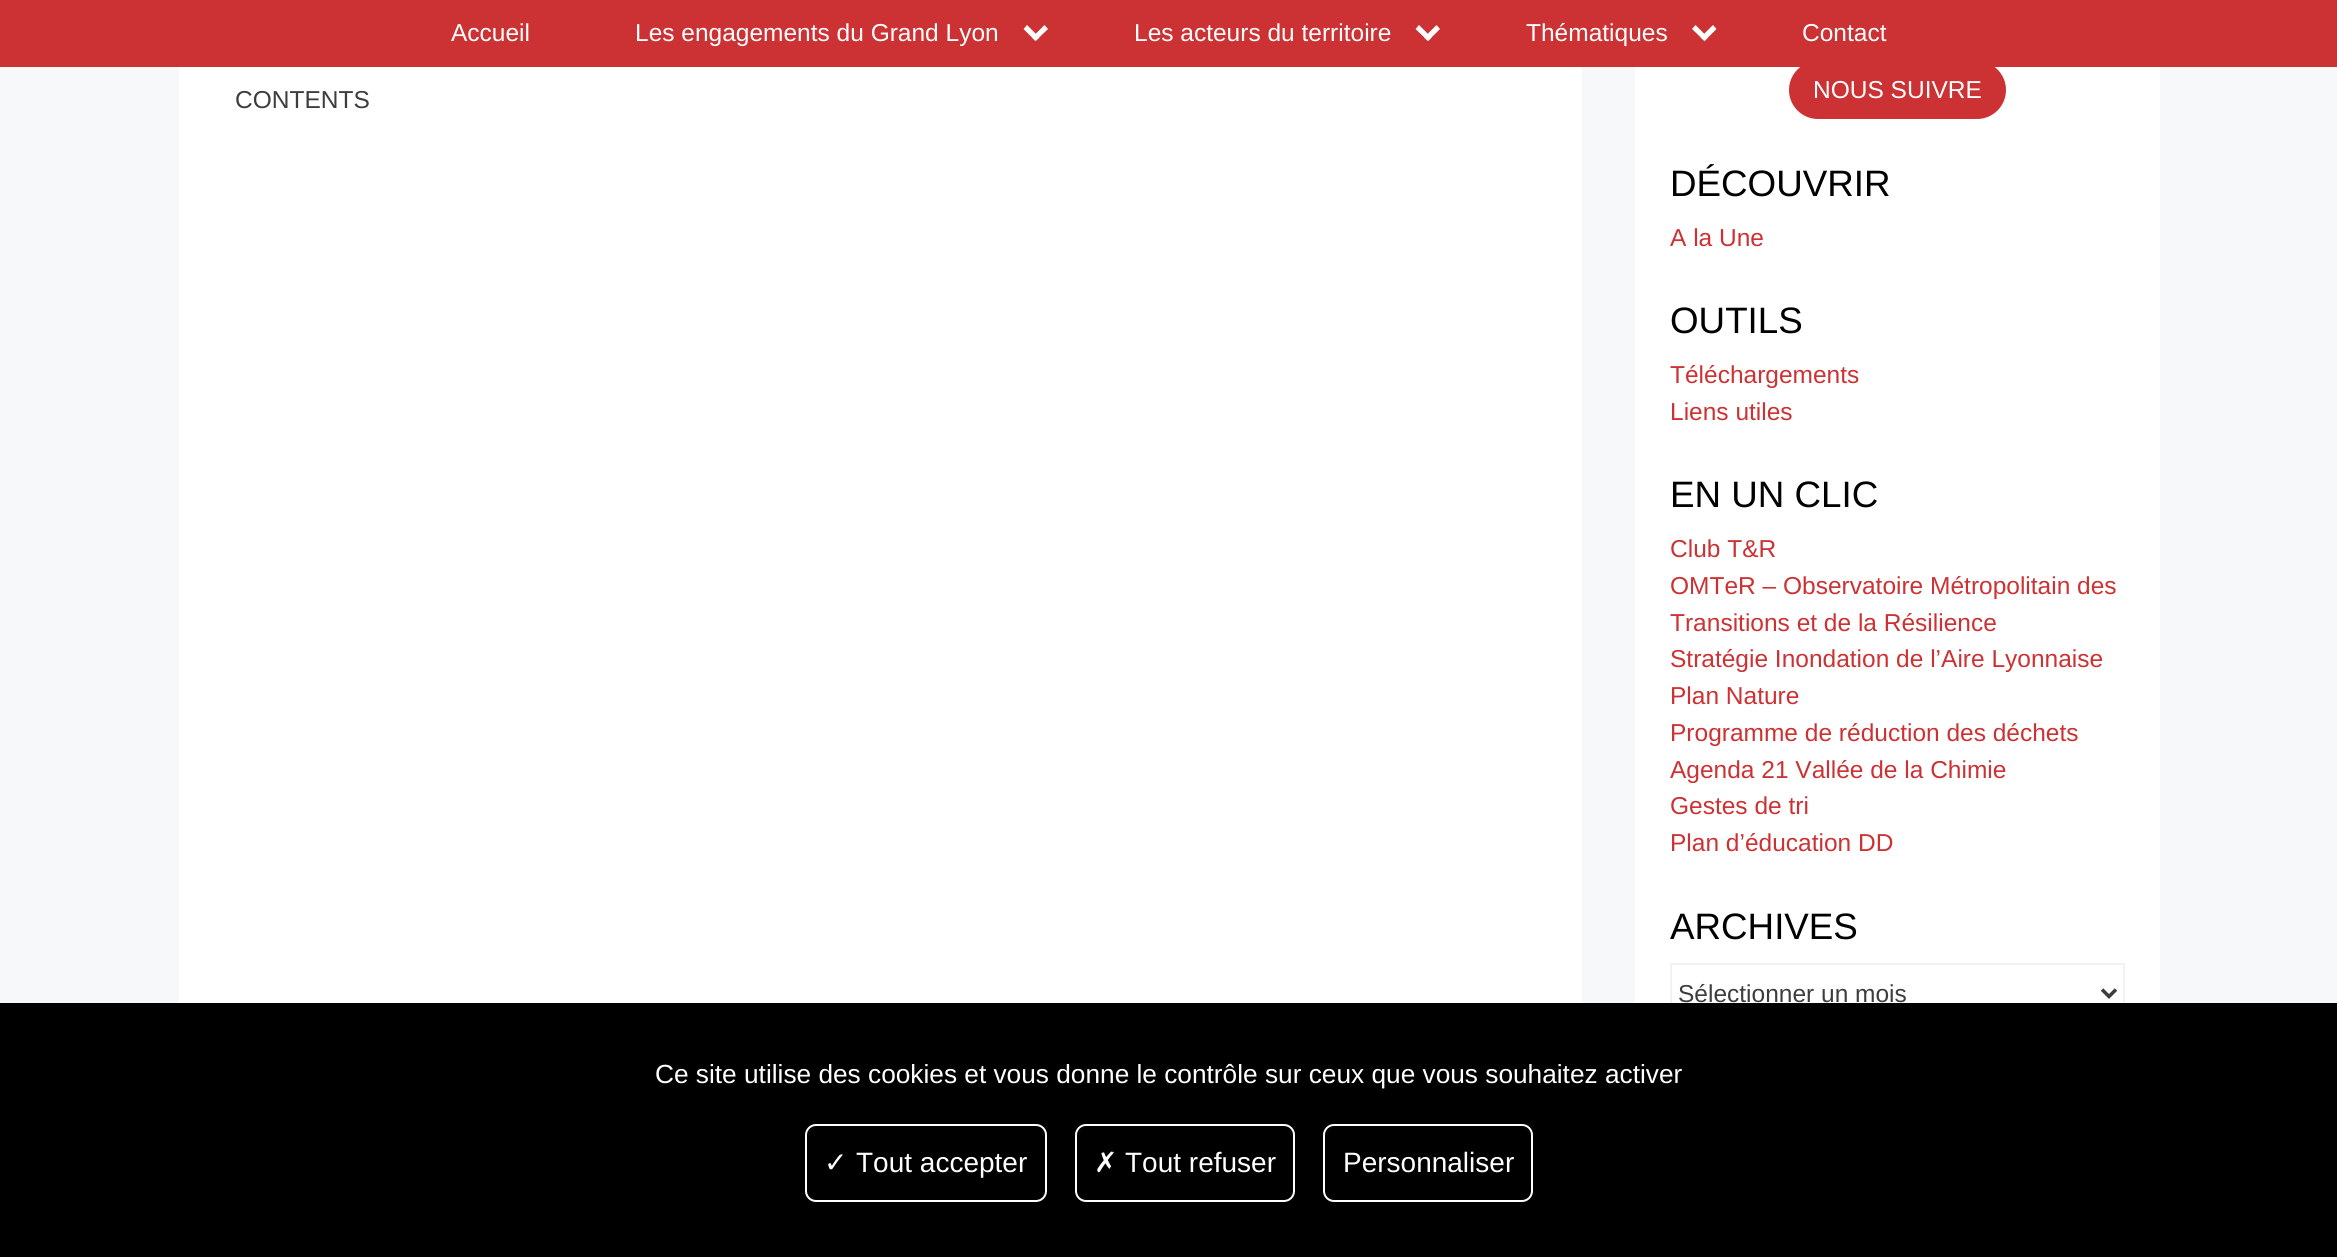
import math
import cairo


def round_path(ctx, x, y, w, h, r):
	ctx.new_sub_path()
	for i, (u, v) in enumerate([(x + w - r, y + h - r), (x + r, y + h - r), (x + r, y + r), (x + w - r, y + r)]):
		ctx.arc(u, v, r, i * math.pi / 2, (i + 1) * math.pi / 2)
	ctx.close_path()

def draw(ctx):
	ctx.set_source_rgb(0.961, 0.969, 0.976)
	ctx.paint()
	ctx.set_source_rgb(1, 1, 1)
	ctx.rectangle(1635, 67, 525, 936)
	ctx.fill()
	ctx.set_source_rgb(0.8, 0.196, 0.2)
	round_path(ctx, 1789, 61, 217, 58, 29)
	ctx.fill()
	ctx.rectangle(0, 0, 2337, 67)
	ctx.fill()
	ctx.select_font_face('Liberation Sans')
	ctx.set_font_size(24.5)
	ctx.set_source_rgb(1, 1, 1)
	ctx.move_to(451, 41)
	ctx.show_text('Accueil')
	ctx.move_to(635, 41)
	ctx.show_text('Les engagements du Grand Lyon')
	ctx.new_path()
	ctx.move_to(1032, 37.5)
	ctx.line_to(1044.5, 25)
	ctx.line_to(1048, 29)
	ctx.line_to(1035.5, 41)
	ctx.close_path()
	ctx.fill()
	ctx.new_path()
	ctx.move_to(1023.5, 29)
	ctx.line_to(1027, 25)
	ctx.line_to(1039.5, 37.5)
	ctx.line_to(1035.5, 41)
	ctx.close_path()
	ctx.fill()
	ctx.move_to(1134, 41)
	ctx.show_text('Les acteurs du territoire')
	ctx.new_path()
	ctx.move_to(1424, 37.5)
	ctx.line_to(1436.5, 25)
	ctx.line_to(1440, 29)
	ctx.line_to(1428, 41)
	ctx.close_path()
	ctx.fill()
	ctx.new_path()
	ctx.move_to(1415.5, 29)
	ctx.line_to(1419, 25)
	ctx.line_to(1431.5, 37.5)
	ctx.line_to(1428, 41)
	ctx.close_path()
	ctx.fill()
	ctx.move_to(1526, 41)
	ctx.show_text('Thématiques')
	ctx.new_path()
	ctx.move_to(1700.5, 37.5)
	ctx.line_to(1713, 25)
	ctx.line_to(1716.5, 29)
	ctx.line_to(1704.5, 41)
	ctx.close_path()
	ctx.fill()
	ctx.new_path()
	ctx.move_to(1692, 29)
	ctx.line_to(1695.5, 25)
	ctx.line_to(1708, 37.5)
	ctx.line_to(1704.5, 41)
	ctx.close_path()
	ctx.fill()
	ctx.move_to(1802, 41)
	ctx.show_text('Contact')
	ctx.rectangle(179, 67, 1403, 936)
	ctx.fill()
	ctx.set_source_rgb(0.239, 0.239, 0.239)
	ctx.move_to(235, 108)
	ctx.show_text('CONTENTS')
	ctx.set_source_rgb(1, 1, 1)
	ctx.move_to(1813, 98)
	ctx.show_text('NOUS SUIVRE')
	ctx.set_font_size(36.75)
	ctx.set_source_rgb(0, 0, 0)
	ctx.move_to(1670, 196)
	ctx.show_text('DÉCOUVRIR')
	ctx.set_font_size(24.5)
	ctx.set_source_rgb(0.8, 0.196, 0.2)
	ctx.move_to(1670, 246)
	ctx.show_text('A la Une')
	ctx.set_font_size(36.75)
	ctx.set_source_rgb(0, 0, 0)
	ctx.move_to(1670, 333)
	ctx.show_text('OUTILS')
	ctx.set_font_size(24.5)
	ctx.set_source_rgb(0.8, 0.196, 0.2)
	ctx.move_to(1670, 383)
	ctx.show_text('Téléchargements')
	ctx.move_to(1670, 420)
	ctx.show_text('Liens utiles')
	ctx.set_font_size(36.75)
	ctx.set_source_rgb(0, 0, 0)
	ctx.move_to(1670, 507)
	ctx.show_text('EN UN CLIC')
	ctx.set_font_size(24.5)
	ctx.set_source_rgb(0.8, 0.196, 0.2)
	for x, y, s in [
		(1670, 557, 'Club T&R'),
		(1670, 594, 'OMTeR – Observatoire Métropolitain des'),
		(1670, 631, 'Transitions et de la Résilience'),
		(1670, 667, 'Stratégie Inondation de l’Aire Lyonnaise'),
		(1670, 704, 'Plan Nature'),
		(1670, 741, 'Programme de réduction des déchets'),
		(1670, 778, 'Agenda 21 Vallée de la Chimie'),
		(1670, 814, 'Gestes de tri'),
		(1670, 851, 'Plan d’éducation DD'),
	]:
		ctx.move_to(x, y)
		ctx.show_text(s)
	ctx.set_font_size(36.75)
	ctx.set_source_rgb(0, 0, 0)
	ctx.move_to(1670, 939)
	ctx.show_text('ARCHIVES')
	ctx.rectangle(1671, 964, 453, 59)
	ctx.set_source_rgb(0.949, 0.949, 0.949)
	ctx.stroke()
	ctx.new_path()
	ctx.move_to(2102, 989.5)
	ctx.line_to(2109, 996.5)
	ctx.line_to(2116, 989.5)
	ctx.set_source_rgb(0.239, 0.239, 0.239)
	ctx.set_line_width(3.5)
	ctx.stroke()
	ctx.set_font_size(24.5)
	ctx.move_to(1678, 1002)
	ctx.show_text('Sélectionner un mois')
	ctx.set_source_rgb(0, 0, 0)
	ctx.rectangle(0, 1003, 2337, 254)
	ctx.fill()
	ctx.set_font_size(26.25)
	ctx.set_source_rgb(1, 1, 1)
	ctx.move_to(655, 1083)
	ctx.show_text('Ce site utilise des cookies et vous donne le contrôle sur ceux que vous souhaitez activer')
	round_path(ctx, 806, 1125, 240, 76, 10)
	ctx.set_line_width(2)
	ctx.stroke()
	ctx.select_font_face('DejaVu Sans')
	ctx.set_font_size(28)
	ctx.move_to(824, 1172)
	ctx.show_text('✓')
	ctx.select_font_face('Liberation Sans')
	ctx.move_to(856, 1172)
	ctx.show_text('Tout accepter')
	round_path(ctx, 1076, 1125, 218, 76, 10)
	ctx.stroke()
	ctx.select_font_face('DejaVu Sans')
	ctx.move_to(1094, 1172)
	ctx.show_text('✗')
	ctx.select_font_face('Liberation Sans')
	ctx.move_to(1125, 1172)
	ctx.show_text('Tout refuser')
	round_path(ctx, 1324, 1125, 208, 76, 10)
	ctx.stroke()
	ctx.move_to(1343, 1172)
	ctx.show_text('Personnaliser')


surface = cairo.ImageSurface(cairo.FORMAT_RGB24, 2337, 1257)
ctx = cairo.Context(surface)
options = cairo.FontOptions()
options.set_hint_metrics(cairo.HINT_METRICS_OFF)
options.set_hint_style(cairo.HINT_STYLE_NONE)
ctx.set_font_options(options)
ctx.set_miter_limit(4)
draw(ctx)
surface.write_to_png('image.png')
